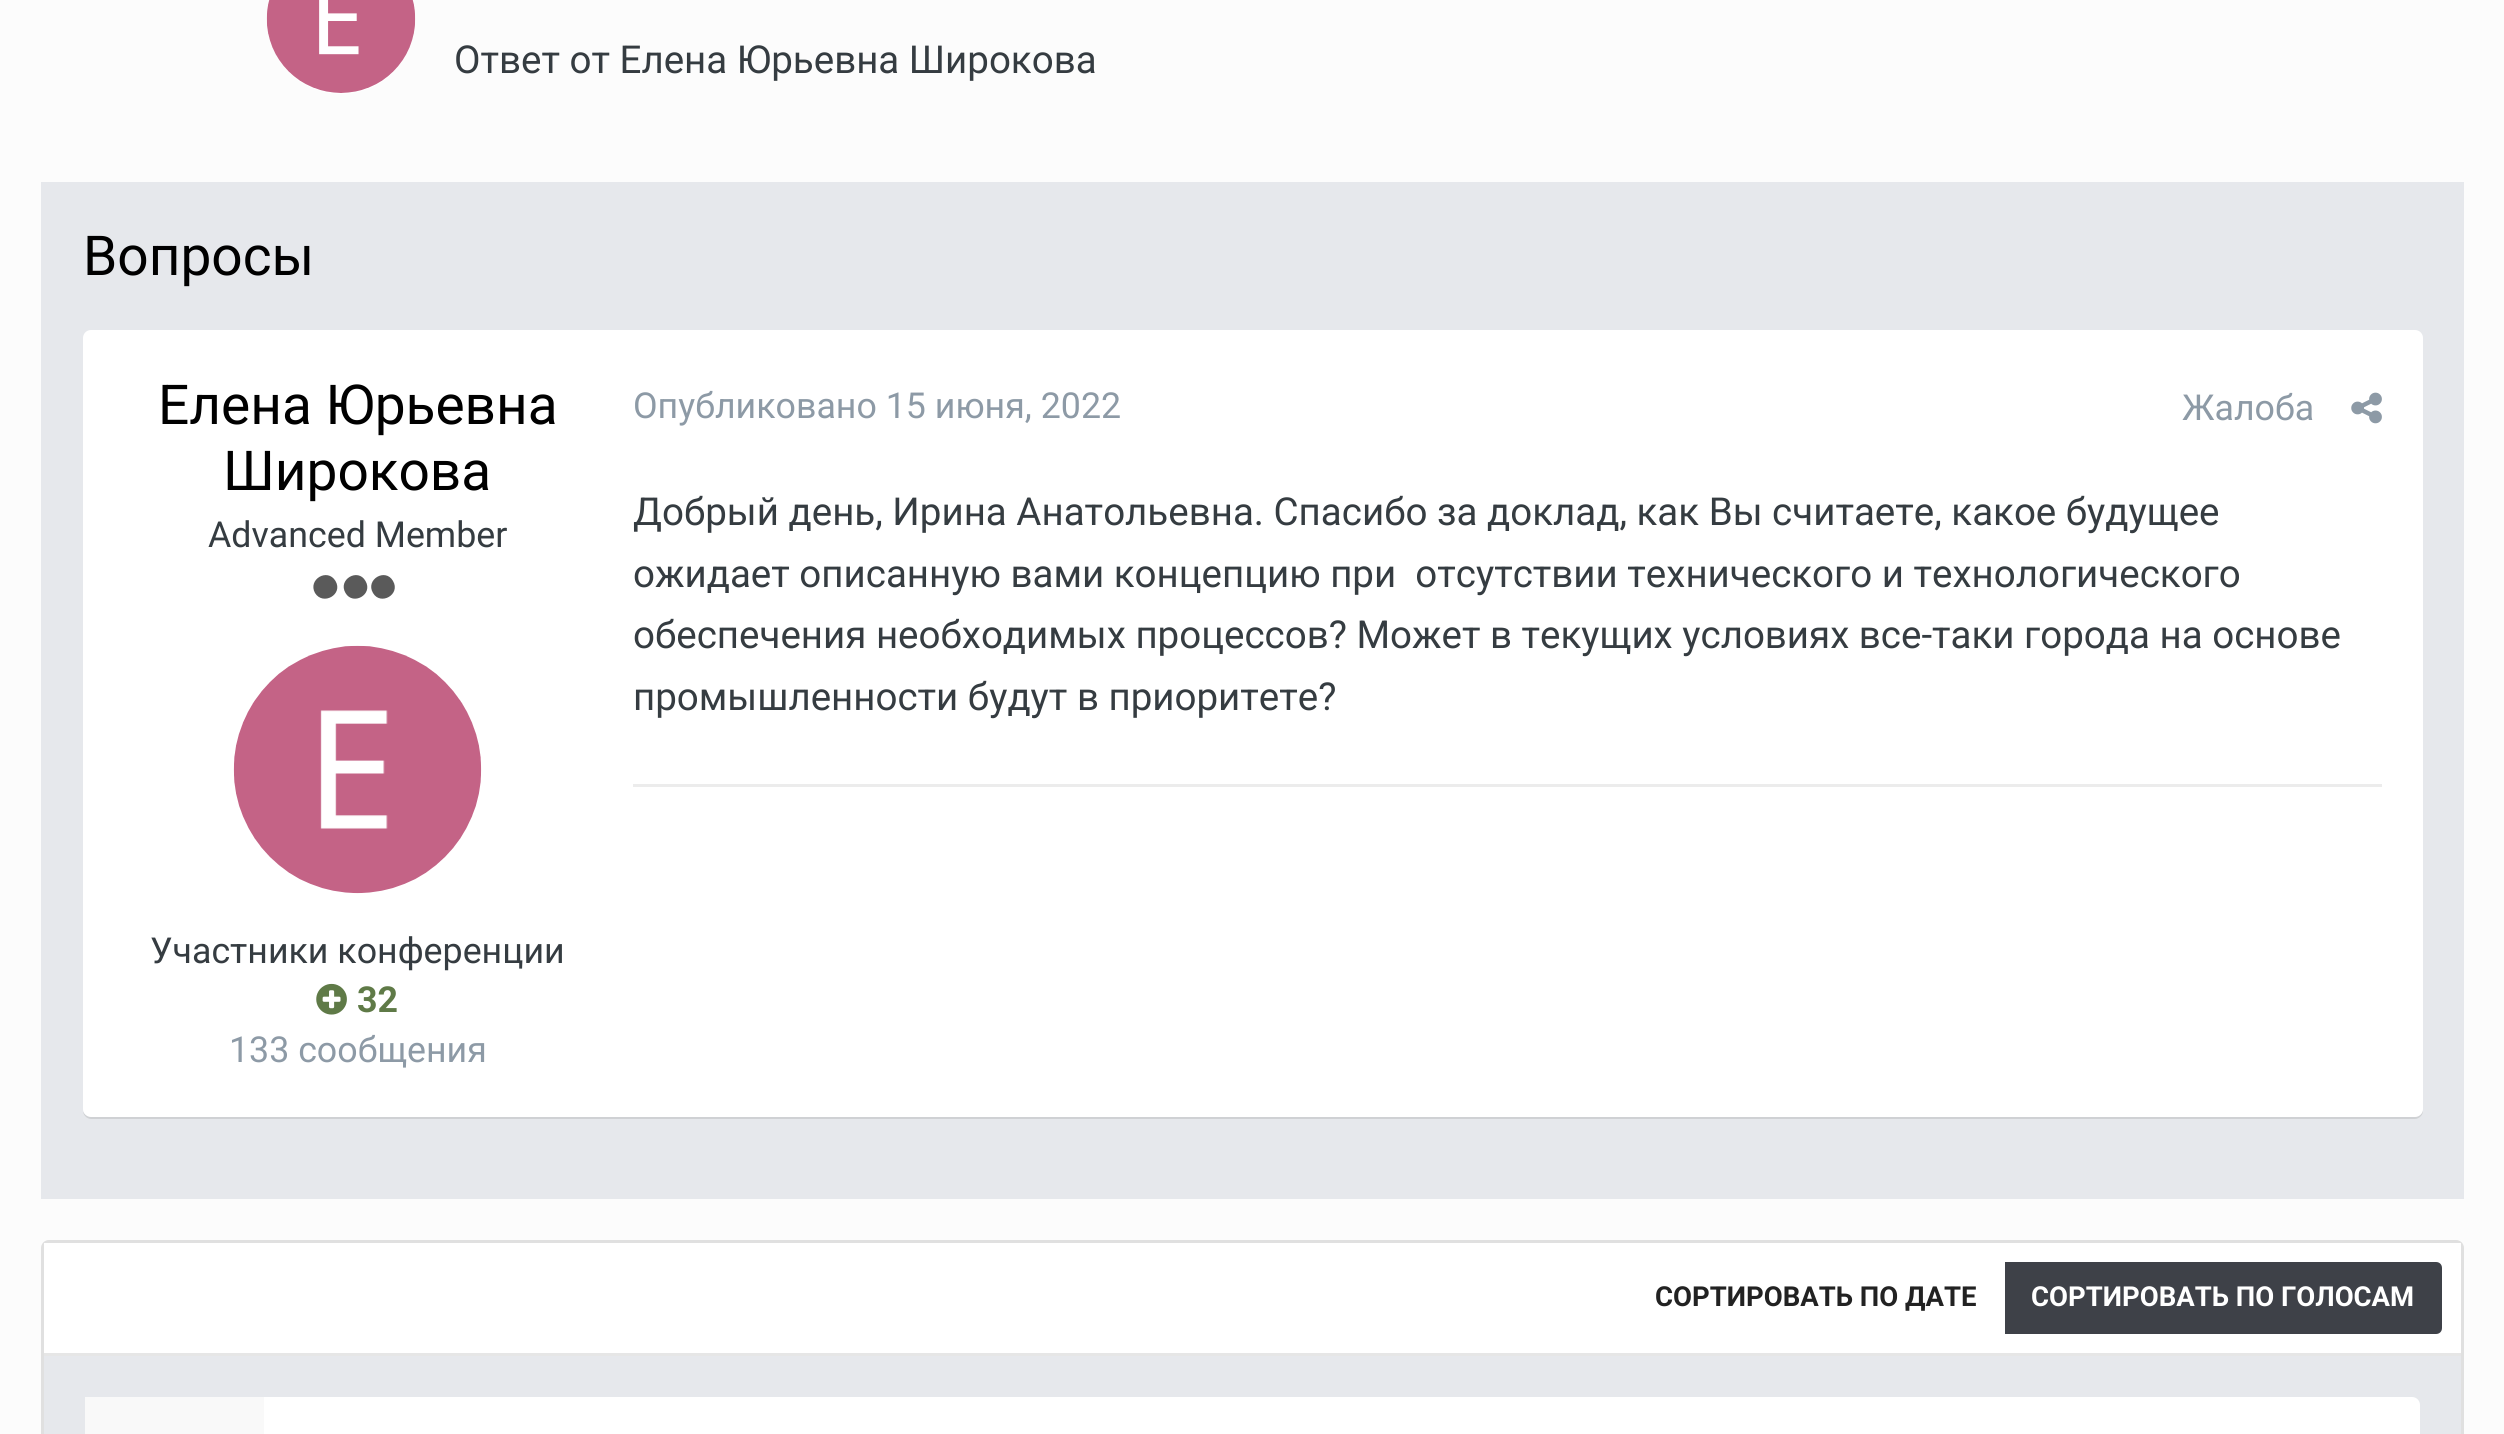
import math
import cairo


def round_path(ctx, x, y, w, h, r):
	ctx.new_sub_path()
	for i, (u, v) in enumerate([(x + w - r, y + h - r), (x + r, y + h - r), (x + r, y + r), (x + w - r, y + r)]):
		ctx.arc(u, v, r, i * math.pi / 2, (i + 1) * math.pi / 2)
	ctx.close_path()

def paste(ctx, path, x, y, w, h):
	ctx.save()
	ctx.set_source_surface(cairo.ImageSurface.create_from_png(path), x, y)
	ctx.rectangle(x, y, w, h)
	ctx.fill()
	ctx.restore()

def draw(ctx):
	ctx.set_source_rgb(0.988, 0.988, 0.988)
	ctx.paint()
	ctx.set_source_rgb(1, 1, 1)
	round_path(ctx, 267, -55, 148, 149, 74)
	ctx.fill()
	paste(ctx, 'media/1.png', 266, 0, 150, 93)
	ctx.select_font_face('Roboto')
	ctx.set_font_size(38.5)
	ctx.set_source_rgb(0.208, 0.235, 0.255)
	ctx.move_to(454, 73)
	ctx.show_text('Ответ от Елена Юрьевна Широкова')
	ctx.set_source_rgb(0.902, 0.91, 0.922)
	ctx.rectangle(41, 182, 2423, 1017)
	ctx.fill()
	ctx.set_font_size(55)
	ctx.set_source_rgb(0, 0, 0)
	ctx.move_to(83, 275)
	ctx.show_text('Вопросы')
	ctx.set_source_rgb(0.812, 0.82, 0.831)
	ctx.new_path()
	ctx.move_to(83, 1111)
	ctx.curve_to(83, 1115, 87, 1119, 91, 1119)
	ctx.line_to(2415, 1119)
	ctx.curve_to(2419, 1119, 2423, 1115, 2423, 1111)
	ctx.line_to(2423, 339)
	ctx.line_to(2423, 1108)
	ctx.curve_to(2423, 1113, 2419, 1116, 2414, 1116)
	ctx.line_to(91, 1116)
	ctx.curve_to(87, 1116, 84, 1114, 83, 1111)
	ctx.close_path()
	ctx.fill()
	ctx.set_source_rgb(1, 1, 1)
	round_path(ctx, 83, 330, 2340, 787, 8)
	ctx.fill()
	ctx.set_source_rgb(0, 0, 0)
	ctx.move_to(158, 424)
	ctx.show_text('Елена Юрьевна')
	ctx.move_to(223, 490)
	ctx.show_text('Широкова')
	ctx.set_font_size(35.75)
	ctx.set_source_rgb(0.208, 0.235, 0.255)
	ctx.move_to(208, 547)
	ctx.show_text('Advanced Member')
	ctx.set_source_rgb(0.353, 0.353, 0.353)
	ctx.new_path()
	ctx.move_to(335.5, 581)
	ctx.curve_to(343.5, 594.5, 323, 606, 315, 593)
	ctx.curve_to(307.5, 579.5, 327.5, 567.5, 335.5, 581)
	ctx.close_path()
	ctx.move_to(365.5, 581)
	ctx.curve_to(373.5, 594.5, 353, 606, 345.5, 593)
	ctx.curve_to(337.5, 579.5, 358, 567.5, 365.5, 581)
	ctx.close_path()
	ctx.fill()
	ctx.new_path()
	ctx.move_to(393, 581)
	ctx.curve_to(401, 594.5, 380.5, 606, 373, 593)
	ctx.curve_to(365, 579.5, 385.5, 567.5, 393, 581)
	ctx.close_path()
	ctx.fill()
	paste(ctx, 'media/2.png', 233, 645, 249, 249)
	ctx.set_source_rgb(0.208, 0.235, 0.255)
	ctx.move_to(150, 963)
	ctx.show_text('Участники конференции')
	paste(ctx, 'media/3.png', 316, 983, 31, 32)
	ctx.select_font_face('Roboto', cairo.FONT_SLANT_NORMAL, cairo.FONT_WEIGHT_BOLD)
	ctx.set_source_rgb(0.373, 0.478, 0.278)
	ctx.move_to(357, 1012)
	ctx.show_text('32')
	ctx.select_font_face('Roboto')
	ctx.set_source_rgb(0.553, 0.604, 0.651)
	for x, y, s in [
		(229, 1062, '133 сообщения'),
		(633, 418, 'Опубликовано 15 июня, 2022'),
		(2182, 420, 'Жалоба'),
	]:
		ctx.move_to(x, y)
		ctx.show_text(s)
	paste(ctx, 'media/4.png', 2351, 392, 31, 32)
	ctx.set_font_size(38.5)
	ctx.set_source_rgb(0.208, 0.235, 0.255)
	for x, y, s in [
		(633, 525, 'Добрый день, Ирина Анатольевна. Спасибо за доклад, как Вы считаете, какое будущее'),
		(633, 587, 'ожидает описанную вами концепцию при  отсутствии технического и технологического'),
		(633, 648, 'обеспечения необходимых процессов? Может в текущих условиях все-таки города на основе'),
		(633, 710, 'промышленности будут в приоритете?'),
	]:
		ctx.move_to(x, y)
		ctx.show_text(s)
	ctx.set_source_rgb(0.925, 0.925, 0.925)
	ctx.rectangle(633, 784, 1749, 3)
	ctx.fill()
	round_path(ctx, 42.5, 1241.5, 2420, 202, 6.5)
	ctx.set_source_rgb(0.878, 0.878, 0.878)
	ctx.set_line_width(3)
	ctx.stroke()
	ctx.set_source_rgb(1, 1, 1)
	ctx.rectangle(44, 1243, 2417, 110)
	ctx.fill()
	ctx.set_source_rgb(0.902, 0.902, 0.902)
	ctx.rectangle(44, 1353, 2417, 3)
	ctx.fill()
	ctx.select_font_face('Roboto', cairo.FONT_SLANT_NORMAL, cairo.FONT_WEIGHT_BOLD)
	ctx.set_font_size(27.5)
	ctx.set_source_rgb(0.133, 0.133, 0.133)
	ctx.move_to(1655, 1306)
	ctx.show_text('СОРТИРОВАТЬ ПО ДАТЕ')
	ctx.set_source_rgb(0.243, 0.255, 0.282)
	ctx.new_path()
	ctx.move_to(2005, 1262)
	ctx.line_to(2436, 1262)
	ctx.curve_to(2439.5, 1262, 2442, 1264.5, 2442, 1268)
	ctx.line_to(2442, 1328)
	ctx.curve_to(2442, 1331.5, 2439.5, 1334, 2436, 1334)
	ctx.line_to(2005, 1334)
	ctx.close_path()
	ctx.fill()
	ctx.set_source_rgb(1, 1, 1)
	ctx.move_to(2031, 1306)
	ctx.show_text('СОРТИРОВАТЬ ПО ГОЛОСАМ')
	ctx.set_source_rgb(0.902, 0.91, 0.922)
	ctx.rectangle(44, 1356, 2417, 78)
	ctx.fill()
	ctx.set_source_rgb(1, 1, 1)
	round_path(ctx, 85, 1397, 2335, 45, 8)
	ctx.fill()
	ctx.set_source_rgb(0.973, 0.973, 0.973)
	ctx.rectangle(85, 1397, 179, 37)
	ctx.fill()


surface = cairo.ImageSurface(cairo.FORMAT_RGB24, 2504, 1434)
ctx = cairo.Context(surface)
options = cairo.FontOptions()
options.set_hint_metrics(cairo.HINT_METRICS_OFF)
options.set_hint_style(cairo.HINT_STYLE_NONE)
ctx.set_font_options(options)
ctx.set_miter_limit(4)
draw(ctx)
surface.write_to_png('image.png')
